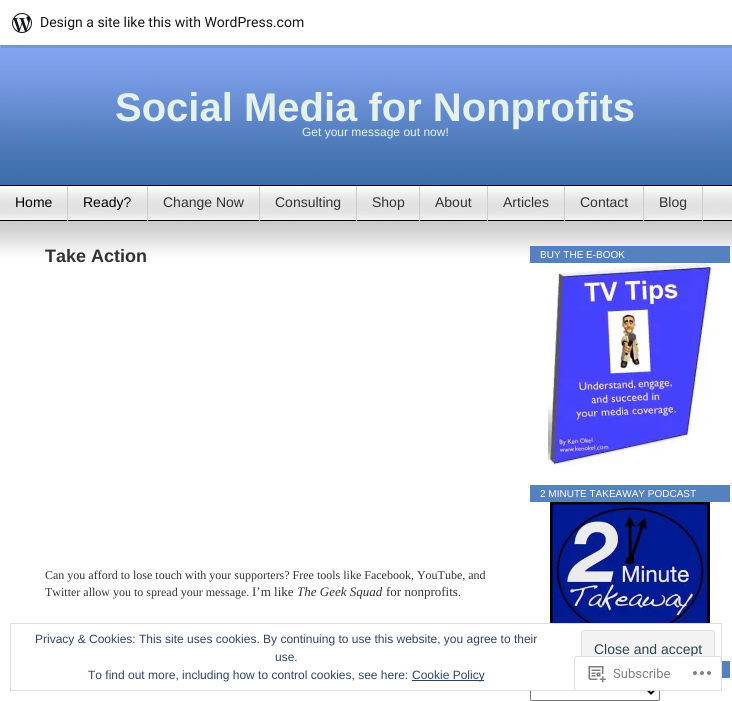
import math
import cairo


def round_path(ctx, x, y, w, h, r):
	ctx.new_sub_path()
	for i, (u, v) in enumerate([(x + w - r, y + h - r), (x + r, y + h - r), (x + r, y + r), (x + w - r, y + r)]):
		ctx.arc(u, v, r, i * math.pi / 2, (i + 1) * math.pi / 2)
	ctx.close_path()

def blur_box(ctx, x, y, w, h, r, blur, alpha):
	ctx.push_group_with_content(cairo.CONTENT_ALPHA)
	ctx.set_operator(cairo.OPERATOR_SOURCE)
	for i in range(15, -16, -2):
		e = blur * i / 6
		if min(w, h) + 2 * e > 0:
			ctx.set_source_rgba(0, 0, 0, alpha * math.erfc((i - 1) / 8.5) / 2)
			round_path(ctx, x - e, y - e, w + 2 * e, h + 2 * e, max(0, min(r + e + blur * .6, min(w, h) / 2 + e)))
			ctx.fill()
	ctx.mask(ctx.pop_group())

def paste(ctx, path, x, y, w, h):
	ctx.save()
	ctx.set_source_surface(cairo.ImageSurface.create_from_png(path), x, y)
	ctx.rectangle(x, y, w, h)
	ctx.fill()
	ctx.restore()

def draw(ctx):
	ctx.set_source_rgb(1, 1, 1)
	ctx.paint()
	paste(ctx, 'media/2.png', 0, 45, 732, 140)
	ctx.set_source_rgb(0, 0, 0)
	blur_box(ctx, 0, 1, 732, 45, 0, 1, 0.05)
	ctx.set_source_rgba(0, 0, 0, 0.08)
	ctx.new_path()
	ctx.move_to(1, 45)
	ctx.line_to(1, 48)
	ctx.line_to(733, 48)
	ctx.line_to(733, 3)
	ctx.line_to(732, 3)
	ctx.line_to(732, 45)
	ctx.close_path()
	ctx.fill()
	ctx.set_source_rgb(1, 1, 1)
	ctx.rectangle(0, 0, 732, 45)
	ctx.fill()
	paste(ctx, 'media/1.png', 12, 13, 20, 20)
	ctx.select_font_face('Roboto')
	ctx.set_font_size(14)
	ctx.set_source_rgb(0.09, 0.09, 0.09)
	ctx.move_to(40, 27)
	ctx.show_text('Design a site like this with WordPress.com')
	ctx.set_source_rgb(0, 0, 0)
	ctx.rectangle(0, 185, 732, 1)
	ctx.fill()
	ctx.select_font_face('Liberation Sans', cairo.FONT_SLANT_NORMAL, cairo.FONT_WEIGHT_BOLD)
	ctx.set_font_size(40)
	ctx.set_source_rgb(0.898, 0.949, 0.914)
	ctx.move_to(115, 121)
	ctx.show_text('Social Media for Nonprofits')
	ctx.select_font_face('Liberation Sans')
	ctx.set_font_size(12)
	ctx.move_to(302, 136)
	ctx.show_text('Get your message out now!')
	paste(ctx, 'media/3.png', 0, 188, 732, 32)
	ctx.set_source_rgb(0, 0, 0)
	ctx.rectangle(0, 220, 732, 1)
	ctx.fill()
	ctx.set_source_rgb(0.808, 0.808, 0.808)
	ctx.rectangle(67, 186, 1, 35)
	ctx.fill()
	ctx.set_font_size(14)
	ctx.set_source_rgb(0, 0, 0)
	ctx.move_to(15, 207)
	ctx.show_text('Home')
	ctx.set_source_rgb(0.808, 0.808, 0.808)
	ctx.rectangle(147, 186, 1, 35)
	ctx.fill()
	ctx.set_source_rgb(0, 0, 0)
	ctx.move_to(83, 207)
	ctx.show_text('Ready?')
	ctx.set_source_rgb(0.808, 0.808, 0.808)
	ctx.rectangle(259, 186, 1, 35)
	ctx.fill()
	ctx.set_source_rgb(0.2, 0.2, 0.2)
	ctx.move_to(163, 207)
	ctx.show_text('Change Now')
	ctx.set_source_rgb(0.808, 0.808, 0.808)
	ctx.rectangle(356, 186, 1, 35)
	ctx.fill()
	ctx.set_source_rgb(0.2, 0.2, 0.2)
	ctx.move_to(275, 207)
	ctx.show_text('Consulting')
	ctx.set_source_rgb(0.808, 0.808, 0.808)
	ctx.rectangle(419, 186, 1, 35)
	ctx.fill()
	ctx.set_source_rgb(0.2, 0.2, 0.2)
	ctx.move_to(372, 207)
	ctx.show_text('Shop')
	ctx.set_source_rgb(0.808, 0.808, 0.808)
	ctx.rectangle(487, 186, 1, 35)
	ctx.fill()
	ctx.set_source_rgb(0.2, 0.2, 0.2)
	ctx.move_to(435, 207)
	ctx.show_text('About')
	ctx.set_source_rgb(0.808, 0.808, 0.808)
	ctx.rectangle(564, 186, 1, 35)
	ctx.fill()
	ctx.set_source_rgb(0.2, 0.2, 0.2)
	ctx.move_to(503, 207)
	ctx.show_text('Articles')
	ctx.set_source_rgb(0.808, 0.808, 0.808)
	ctx.rectangle(643, 186, 1, 35)
	ctx.fill()
	ctx.set_source_rgb(0.2, 0.2, 0.2)
	ctx.move_to(580, 207)
	ctx.show_text('Contact')
	ctx.set_source_rgb(0.808, 0.808, 0.808)
	ctx.rectangle(702, 186, 1, 35)
	ctx.fill()
	ctx.set_source_rgb(0.2, 0.2, 0.2)
	ctx.move_to(659, 207)
	ctx.show_text('Blog')
	paste(ctx, 'media/4.png', 0, 221, 732, 36)
	ctx.select_font_face('Liberation Sans', cairo.FONT_SLANT_NORMAL, cairo.FONT_WEIGHT_BOLD)
	ctx.set_font_size(18)
	ctx.move_to(45, 262)
	ctx.show_text('Take Action')
	ctx.select_font_face('Liberation Serif')
	ctx.set_font_size(12)
	ctx.move_to(45, 579)
	ctx.show_text('Can you afford to lose touch with your supporters? Free tools like Facebook, YouTube, and')
	ctx.move_to(45, 596)
	ctx.show_text('Twitter allow you to spread your message.')
	ctx.set_font_size(13)
	ctx.move_to(252, 596)
	ctx.show_text('I’m like')
	ctx.select_font_face('Liberation Serif', cairo.FONT_SLANT_ITALIC)
	ctx.move_to(297, 596)
	ctx.show_text('The Geek Squad')
	ctx.select_font_face('Liberation Serif')
	ctx.move_to(386, 596)
	ctx.show_text('for nonprofits.')
	ctx.set_source_rgb(0.333, 0.506, 0.753)
	ctx.rectangle(530, 246, 200, 17)
	ctx.fill()
	ctx.select_font_face('Liberation Sans')
	ctx.set_font_size(10)
	ctx.set_source_rgb(1, 1, 1)
	ctx.move_to(540, 258)
	ctx.show_text('BUY THE E-BOOK')
	paste(ctx, 'media/5.png', 548, 263, 165, 202)
	ctx.set_source_rgb(0.333, 0.506, 0.753)
	ctx.rectangle(530, 485, 200, 17)
	ctx.fill()
	ctx.set_source_rgb(1, 1, 1)
	ctx.move_to(540, 497)
	ctx.show_text('2 MINUTE TAKEAWAY PODCAST')
	paste(ctx, 'media/6.png', 550, 502, 160, 121)
	ctx.set_source_rgb(0.333, 0.506, 0.753)
	ctx.rectangle(722, 661, 8, 17)
	ctx.fill()
	round_path(ctx, 530.5, 682.5, 129, 18, 1.5)
	ctx.set_source_rgb(0.463, 0.463, 0.463)
	ctx.set_line_width(1)
	ctx.stroke()
	ctx.new_path()
	ctx.move_to(647, 689.5)
	ctx.line_to(651, 693.5)
	ctx.line_to(655, 689.5)
	ctx.set_source_rgb(0, 0, 0)
	ctx.set_line_width(2)
	ctx.stroke()
	ctx.set_source_rgb(1, 1, 1)
	ctx.rectangle(530, 682, 130, 8)
	ctx.fill()
	ctx.rectangle(10.5, 623.5, 711, 67)
	ctx.set_source_rgb(0.871, 0.871, 0.871)
	ctx.set_line_width(1)
	ctx.stroke()
	ctx.set_font_size(12)
	ctx.set_source_rgb(0.18, 0.267, 0.404)
	ctx.move_to(35, 643)
	ctx.show_text('Privacy & Cookies: This site uses cookies. By continuing to use this website, you agree to their')
	ctx.set_source_rgb(0.953, 0.953, 0.953)
	round_path(ctx, 581.5, 630.5, 133, 38, 2.5)
	ctx.fill_preserve()
	ctx.set_source_rgb(0.871, 0.871, 0.871)
	ctx.stroke()
	ctx.set_font_size(14)
	ctx.set_source_rgb(0.18, 0.267, 0.325)
	ctx.move_to(594, 654)
	ctx.show_text('Close and accept')
	ctx.set_font_size(12)
	ctx.set_source_rgb(0.18, 0.267, 0.404)
	ctx.move_to(275, 661)
	ctx.show_text('use.')
	ctx.move_to(88, 679)
	ctx.show_text('To find out more, including how to control cookies, see here:')
	ctx.rectangle(412, 680, 72, 1)
	ctx.fill()
	ctx.move_to(412, 679)
	ctx.show_text('Cookie Policy')
	ctx.set_source_rgba(1, 1, 1, 0.98)
	round_path(ctx, 574, 656, 148, 35, 3)
	ctx.fill()
	round_path(ctx, 574.5, 656.5, 147, 34, 2.5)
	ctx.set_source_rgba(0.863, 0.863, 0.871, 0.98)
	ctx.stroke()
	paste(ctx, 'media/7.png', 588, 666, 18, 17)
	ctx.select_font_face('Roboto')
	ctx.set_font_size(13)
	ctx.set_source_rgb(0.482, 0.498, 0.518)
	ctx.move_to(613, 678)
	ctx.show_text('Subscribe')
	paste(ctx, 'media/8.png', 693, 671, 18, 4)


surface = cairo.ImageSurface(cairo.FORMAT_RGB24, 732, 701)
ctx = cairo.Context(surface)
options = cairo.FontOptions()
options.set_hint_metrics(cairo.HINT_METRICS_OFF)
options.set_hint_style(cairo.HINT_STYLE_NONE)
ctx.set_font_options(options)
ctx.set_miter_limit(4)
draw(ctx)
surface.write_to_png('image.png')
